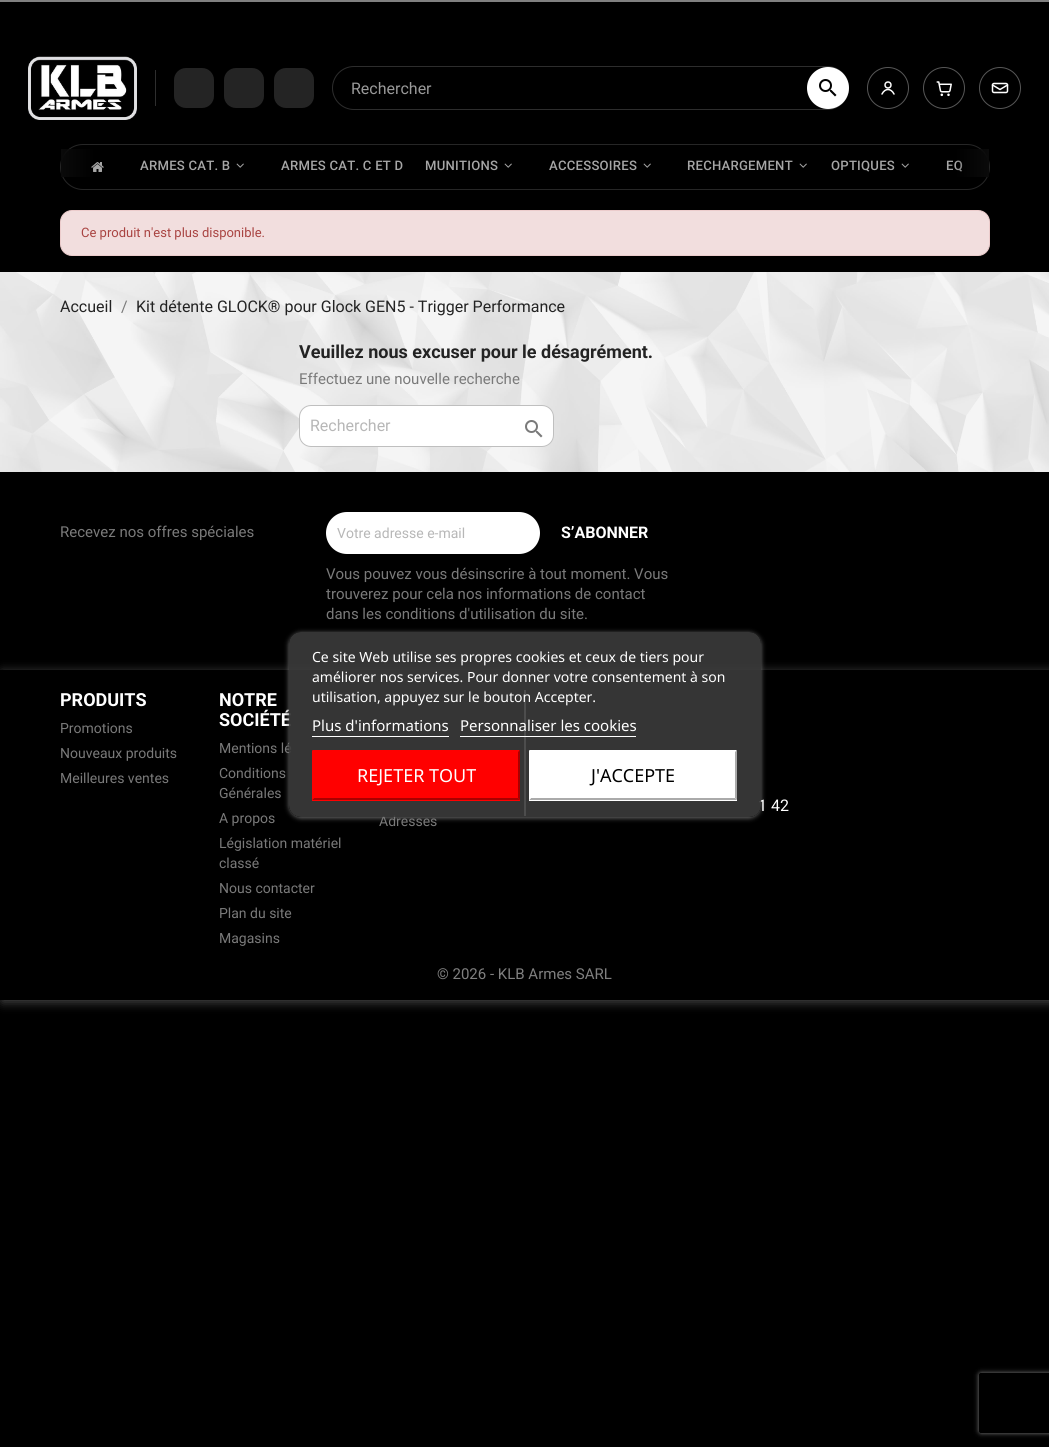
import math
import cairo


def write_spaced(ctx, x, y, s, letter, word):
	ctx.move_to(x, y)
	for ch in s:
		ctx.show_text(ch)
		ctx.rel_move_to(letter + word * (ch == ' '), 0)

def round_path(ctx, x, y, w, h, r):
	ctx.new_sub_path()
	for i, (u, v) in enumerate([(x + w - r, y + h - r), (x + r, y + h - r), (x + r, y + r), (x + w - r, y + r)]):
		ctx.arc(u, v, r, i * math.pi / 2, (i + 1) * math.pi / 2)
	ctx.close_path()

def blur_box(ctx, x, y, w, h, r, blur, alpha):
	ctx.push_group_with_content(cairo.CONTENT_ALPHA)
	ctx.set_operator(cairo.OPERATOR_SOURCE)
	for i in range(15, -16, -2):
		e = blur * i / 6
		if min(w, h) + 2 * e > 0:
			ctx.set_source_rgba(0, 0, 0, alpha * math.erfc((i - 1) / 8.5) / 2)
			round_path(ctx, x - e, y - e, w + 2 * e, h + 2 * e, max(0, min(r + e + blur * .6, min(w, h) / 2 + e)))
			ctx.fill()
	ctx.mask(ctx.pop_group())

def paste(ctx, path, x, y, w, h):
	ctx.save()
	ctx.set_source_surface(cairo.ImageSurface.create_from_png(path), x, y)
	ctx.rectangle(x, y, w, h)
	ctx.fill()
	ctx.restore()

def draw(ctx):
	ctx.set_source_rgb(0, 0, 0)
	ctx.paint()
	ctx.set_source_rgb(0.502, 0.502, 0.502)
	ctx.rectangle(0, 0, 1049, 2)
	ctx.fill()
	paste(ctx, 'media/1.png', 28, 56, 109, 64)
	ctx.set_source_rgb(0.18, 0.18, 0.18)
	ctx.rectangle(155, 70, 1, 36)
	ctx.fill()
	ctx.set_source_rgb(0.141, 0.141, 0.141)
	round_path(ctx, 174, 68, 40, 40, 12)
	ctx.fill()
	round_path(ctx, 224, 68, 40, 40, 12)
	ctx.fill()
	round_path(ctx, 274, 68, 40, 40, 12)
	ctx.fill()
	round_path(ctx, 332.5, 66.5, 516, 43, 21.5)
	ctx.set_source_rgb(0.176, 0.176, 0.176)
	ctx.set_line_width(1)
	ctx.stroke()
	ctx.select_font_face('Roboto')
	ctx.set_font_size(16)
	ctx.set_source_rgb(0.6, 0.6, 0.6)
	ctx.move_to(351, 94)
	ctx.show_text('Rechercher')
	ctx.set_source_rgb(1, 1, 1)
	ctx.new_path()
	ctx.arc(828, 88, 21, 0, 2 * math.pi)
	ctx.fill()
	paste(ctx, 'media/2.png', 819, 79, 18, 18)
	ctx.arc(888, 88, 20.5, 0, 2 * math.pi)
	ctx.set_source_rgb(0.341, 0.341, 0.341)
	ctx.stroke()
	ctx.arc(888, 85, 3, 0, 2 * math.pi)
	ctx.set_source_rgb(1, 1, 1)
	ctx.set_line_width(1.5)
	ctx.stroke()
	ctx.new_path()
	ctx.move_to(882, 94)
	ctx.curve_to(885, 88, 891, 88, 894, 94)
	ctx.set_line_cap(cairo.LINE_CAP_ROUND)
	ctx.stroke()
	ctx.arc(944, 88, 20.5, 0, 2 * math.pi)
	ctx.set_source_rgb(0.341, 0.341, 0.341)
	ctx.set_line_width(1)
	ctx.set_line_cap(cairo.LINE_CAP_BUTT)
	ctx.stroke()
	paste(ctx, 'media/3.png', 936, 81, 16, 16)
	ctx.arc(1000, 88, 20.5, 0, 2 * math.pi)
	ctx.stroke()
	paste(ctx, 'media/4.png', 991, 82, 18, 12)
	round_path(ctx, 60.5, 144.5, 929, 45, 22.5)
	ctx.set_source_rgb(0.149, 0.149, 0.149)
	ctx.stroke()
	paste(ctx, 'media/5.png', 91, 162, 13, 10)
	gradient = cairo.LinearGradient(61, 163, 95, 163)
	gradient.add_color_stop_rgba(0, 0.039, 0.039, 0.039, 1)
	gradient.add_color_stop_rgba(1, 0.039, 0.039, 0.039, 0)
	ctx.set_source(gradient)
	ctx.rectangle(61, 149, 33, 28)
	ctx.fill()
	ctx.select_font_face('Roboto Medium')
	ctx.set_font_size(13.1)
	ctx.set_source_rgb(0.651, 0.651, 0.651)
	write_spaced(ctx, 140, 170, 'ARMES CAT. B', 0.25, 0)
	paste(ctx, 'media/6.png', 236, 163, 8, 5)
	write_spaced(ctx, 281, 170, 'ARMES CAT. C ET D', 0.25, 0)
	write_spaced(ctx, 425, 170, 'MUNITIONS', 0.25, 0)
	paste(ctx, 'media/6.png', 504, 163, 8, 5)
	write_spaced(ctx, 549, 170, 'ACCESSOIRES', 0.25, 0)
	paste(ctx, 'media/6.png', 643, 163, 8, 5)
	write_spaced(ctx, 687, 170, 'RECHARGEMENT', 0.25, 0)
	paste(ctx, 'media/6.png', 799, 163, 8, 5)
	write_spaced(ctx, 831, 170, 'OPTIQUES', 0.25, 0)
	paste(ctx, 'media/6.png', 901, 163, 8, 5)
	write_spaced(ctx, 946, 170, 'EQ', 0.25, 0)
	gradient = cairo.LinearGradient(989, 163, 955, 163)
	gradient.add_color_stop_rgba(0, 0.039, 0.039, 0.039, 1)
	gradient.add_color_stop_rgba(1, 0.039, 0.039, 0.039, 0)
	ctx.set_source(gradient)
	ctx.rectangle(956, 149, 33, 28)
	ctx.fill()
	ctx.set_source_rgb(0.949, 0.871, 0.871)
	round_path(ctx, 60.5, 210.5, 929, 45, 11.5)
	ctx.fill_preserve()
	ctx.set_source_rgb(0.922, 0.8, 0.8)
	ctx.stroke()
	ctx.select_font_face('Roboto')
	ctx.set_font_size(13)
	ctx.set_source_rgb(0.663, 0.267, 0.259)
	ctx.move_to(81, 237)
	ctx.show_text('Ce produit n\'est plus disponible.')
	ctx.set_source_rgb(0.945, 0.945, 0.945)
	ctx.rectangle(0, 272, 1049, 200)
	ctx.fill()
	paste(ctx, 'media/7.png', 0, 272, 1049, 200)
	ctx.set_font_size(16)
	ctx.set_source_rgb(0.137, 0.137, 0.137)
	ctx.move_to(60, 312)
	ctx.show_text('Accueil')
	ctx.set_source_rgb(0.478, 0.478, 0.478)
	ctx.move_to(121, 312)
	ctx.show_text('/')
	ctx.set_source_rgb(0.137, 0.137, 0.137)
	ctx.move_to(136, 312)
	ctx.show_text('Kit détente GLOCK® pour Glock GEN5 - Trigger Performance')
	ctx.select_font_face('Roboto', cairo.FONT_SLANT_NORMAL, cairo.FONT_WEIGHT_BOLD)
	ctx.set_font_size(18)
	ctx.move_to(299, 358)
	ctx.show_text('Veuillez nous excuser pour le désagrément.')
	ctx.select_font_face('Roboto')
	ctx.set_font_size(15)
	ctx.set_source_rgb(0.478, 0.478, 0.478)
	ctx.move_to(299, 384)
	ctx.show_text('Effectuez une nouvelle recherche')
	ctx.set_source_rgb(1, 1, 1)
	round_path(ctx, 299, 405, 255, 42, 12)
	ctx.fill()
	round_path(ctx, 299.5, 405.5, 254, 41, 11.5)
	ctx.set_source_rgba(0, 0, 0, 0.25)
	ctx.stroke()
	ctx.set_font_size(16)
	ctx.set_source_rgb(0.718, 0.718, 0.718)
	ctx.move_to(310, 431)
	ctx.show_text('Rechercher')
	paste(ctx, 'media/8.png', 525, 420, 18, 18)
	ctx.set_font_size(15)
	ctx.set_source_rgb(0.478, 0.478, 0.478)
	ctx.move_to(60, 537)
	ctx.show_text('Recevez nos offres spéciales')
	ctx.set_source_rgb(1, 1, 1)
	round_path(ctx, 326, 512, 214, 42, 21)
	ctx.fill()
	ctx.set_font_size(14)
	ctx.set_source_rgb(0.718, 0.718, 0.718)
	ctx.move_to(337, 538)
	ctx.show_text('Votre adresse e-mail')
	ctx.select_font_face('Roboto', cairo.FONT_SLANT_NORMAL, cairo.FONT_WEIGHT_BOLD)
	ctx.set_font_size(16)
	ctx.set_source_rgb(1, 1, 1)
	ctx.move_to(561, 538)
	ctx.show_text('S’ABONNER')
	ctx.select_font_face('Roboto')
	ctx.set_font_size(15)
	ctx.set_source_rgb(0.478, 0.478, 0.478)
	for x, y, s in [
		(326, 579, 'Vous pouvez vous désinscrire à tout moment. Vous'),
		(326, 599, 'trouverez pour cela nos informations de contact'),
		(326, 619, 'dans les conditions d\'utilisation du site.'),
	]:
		ctx.move_to(x, y)
		ctx.show_text(s)
	ctx.save()
	ctx.set_fill_rule(cairo.FILL_RULE_EVEN_ODD)
	ctx.new_path()
	ctx.move_to(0, 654)
	ctx.line_to(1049, 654)
	ctx.line_to(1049, 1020)
	ctx.line_to(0, 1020)
	ctx.close_path()
	ctx.move_to(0, 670)
	ctx.line_to(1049, 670)
	ctx.line_to(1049, 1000)
	ctx.line_to(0, 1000)
	ctx.close_path()
	ctx.clip()
	ctx.set_source_rgb(1, 1, 1)
	blur_box(ctx, 2, 672, 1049, 330, 0, 5.5, 0.3)
	ctx.restore()
	ctx.select_font_face('Roboto', cairo.FONT_SLANT_NORMAL, cairo.FONT_WEIGHT_BOLD)
	ctx.set_font_size(18)
	ctx.set_source_rgb(1, 1, 1)
	ctx.move_to(60, 706)
	ctx.show_text('PRODUITS')
	ctx.select_font_face('Roboto')
	ctx.set_font_size(14)
	ctx.set_source_rgb(0.478, 0.478, 0.478)
	for x, y, s in [
		(60, 733, 'Promotions'),
		(60, 758, 'Nouveaux produits'),
		(60, 783, 'Meilleures ventes'),
	]:
		ctx.move_to(x, y)
		ctx.show_text(s)
	ctx.select_font_face('Roboto', cairo.FONT_SLANT_NORMAL, cairo.FONT_WEIGHT_BOLD)
	ctx.set_font_size(18)
	ctx.set_source_rgb(1, 1, 1)
	ctx.move_to(219, 706)
	ctx.show_text('NOTRE')
	ctx.move_to(219, 726)
	ctx.show_text('SOCIÉTÉ')
	ctx.select_font_face('Roboto')
	ctx.set_font_size(14)
	ctx.set_source_rgb(0.478, 0.478, 0.478)
	for x, y, s in [
		(219, 753, 'Mentions lé'),
		(219, 778, 'Conditions'),
		(219, 798, 'Générales'),
		(219, 823, 'A propos'),
		(219, 848, 'Législation matériel'),
		(219, 868, 'classé'),
		(219, 893, 'Nous contacter'),
		(219, 918, 'Plan du site'),
		(219, 943, 'Magasins'),
	]:
		ctx.move_to(x, y)
		ctx.show_text(s)
	ctx.set_source_rgb(0.945, 0.945, 0.945)
	ctx.rectangle(524, 690, 2, 126)
	ctx.fill()
	ctx.save()
	ctx.set_fill_rule(cairo.FILL_RULE_EVEN_ODD)
	ctx.new_path()
	ctx.move_to(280, 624)
	ctx.line_to(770, 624)
	ctx.line_to(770, 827)
	ctx.line_to(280, 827)
	ctx.close_path()
	ctx.move_to(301, 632)
	ctx.line_to(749, 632)
	ctx.curve_to(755.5, 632, 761, 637.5, 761, 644)
	ctx.line_to(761, 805)
	ctx.curve_to(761, 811.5, 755.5, 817, 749, 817)
	ctx.line_to(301, 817)
	ctx.curve_to(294.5, 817, 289, 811.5, 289, 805)
	ctx.line_to(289, 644)
	ctx.curve_to(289, 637.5, 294.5, 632, 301, 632)
	ctx.close_path()
	ctx.clip()
	ctx.set_source_rgb(0.439, 0.439, 0.439)
	blur_box(ctx, 289, 633, 472, 185, 12, 2.5, 1)
	ctx.restore()
	ctx.set_font_size(16)
	ctx.set_source_rgb(1, 1, 1)
	ctx.move_to(758, 811)
	ctx.show_text('1 42')
	ctx.set_font_size(14)
	ctx.set_source_rgb(0.478, 0.478, 0.478)
	ctx.move_to(379, 826)
	ctx.show_text('Adresses')
	ctx.set_source_rgba(0.231, 0.231, 0.231, 0.9)
	round_path(ctx, 289, 632, 472, 185, 12)
	ctx.fill()
	ctx.select_font_face('Noto Sans')
	ctx.set_source_rgb(1, 1, 1)
	for x, y, s in [
		(312, 662, 'Ce site Web utilise ses propres cookies et ceux de tiers pour'),
		(312, 682, 'améliorer nos services. Pour donner votre consentement à son'),
		(312, 702, 'utilisation, appuyez sur le bouton Accepter.'),
	]:
		ctx.move_to(x, y)
		ctx.show_text(s)
	ctx.set_font_size(15)
	ctx.move_to(312, 731)
	ctx.show_text('Plus d\'informations')
	ctx.rectangle(312, 736, 137, 1)
	ctx.fill()
	ctx.move_to(460, 731)
	ctx.show_text('Personnaliser les cookies')
	ctx.rectangle(460, 736, 176, 1)
	ctx.fill()
	ctx.set_source_rgb(1, 0, 0)
	ctx.rectangle(312, 751, 208, 50)
	ctx.fill()
	ctx.new_path()
	ctx.move_to(312, 750)
	ctx.line_to(520, 750)
	ctx.line_to(518, 752)
	ctx.line_to(314, 752)
	ctx.close_path()
	ctx.fill()
	ctx.set_source_rgb(0.667, 0, 0)
	ctx.new_path()
	ctx.move_to(520, 750)
	ctx.line_to(520, 800)
	ctx.line_to(518, 798)
	ctx.line_to(518, 752)
	ctx.close_path()
	ctx.fill()
	ctx.new_path()
	ctx.move_to(520, 800)
	ctx.line_to(312, 800)
	ctx.line_to(314, 798)
	ctx.line_to(518, 798)
	ctx.close_path()
	ctx.fill()
	ctx.set_source_rgb(1, 0, 0)
	ctx.new_path()
	ctx.move_to(312, 800)
	ctx.line_to(312, 750)
	ctx.line_to(314, 752)
	ctx.line_to(314, 798)
	ctx.close_path()
	ctx.fill()
	ctx.set_font_size(18)
	ctx.set_source_rgb(1, 1, 1)
	ctx.move_to(357, 782)
	ctx.show_text('REJETER TOUT')
	ctx.rectangle(529, 751, 208, 50)
	ctx.fill()
	ctx.new_path()
	ctx.move_to(529, 750)
	ctx.line_to(737, 750)
	ctx.line_to(735, 752)
	ctx.line_to(531, 752)
	ctx.close_path()
	ctx.fill()
	ctx.set_source_rgb(0.667, 0.667, 0.667)
	ctx.new_path()
	ctx.move_to(737, 750)
	ctx.line_to(737, 800)
	ctx.line_to(735, 798)
	ctx.line_to(735, 752)
	ctx.close_path()
	ctx.fill()
	ctx.new_path()
	ctx.move_to(737, 800)
	ctx.line_to(529, 800)
	ctx.line_to(531, 798)
	ctx.line_to(735, 798)
	ctx.close_path()
	ctx.fill()
	ctx.set_source_rgb(1, 1, 1)
	ctx.new_path()
	ctx.move_to(529, 800)
	ctx.line_to(529, 750)
	ctx.line_to(531, 752)
	ctx.line_to(531, 798)
	ctx.close_path()
	ctx.fill()
	ctx.set_source_rgb(0, 0, 0)
	ctx.move_to(591, 782)
	ctx.show_text('J\'ACCEPTE')
	ctx.save()
	ctx.set_fill_rule(cairo.FILL_RULE_EVEN_ODD)
	ctx.new_path()
	ctx.move_to(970, 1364)
	ctx.line_to(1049, 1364)
	ctx.line_to(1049, 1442)
	ctx.line_to(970, 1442)
	ctx.close_path()
	ctx.move_to(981, 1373)
	ctx.line_to(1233, 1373)
	ctx.curve_to(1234, 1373, 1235, 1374, 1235, 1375)
	ctx.line_to(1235, 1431)
	ctx.curve_to(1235, 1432, 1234, 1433, 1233, 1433)
	ctx.line_to(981, 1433)
	ctx.curve_to(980, 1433, 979, 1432, 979, 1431)
	ctx.line_to(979, 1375)
	ctx.curve_to(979, 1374, 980, 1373, 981, 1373)
	ctx.close_path()
	ctx.clip()
	ctx.set_source_rgb(0.502, 0.502, 0.502)
	blur_box(ctx, 979, 1373, 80, 60, 2, 2.5, 1)
	ctx.restore()
	ctx.select_font_face('Roboto')
	ctx.set_font_size(15)
	ctx.set_source_rgb(0.502, 0.502, 0.502)
	ctx.move_to(437, 979)
	ctx.show_text('© 2026 - KLB Armes SARL')


surface = cairo.ImageSurface(cairo.FORMAT_RGB24, 1049, 1447)
ctx = cairo.Context(surface)
options = cairo.FontOptions()
options.set_hint_metrics(cairo.HINT_METRICS_OFF)
options.set_hint_style(cairo.HINT_STYLE_NONE)
ctx.set_font_options(options)
ctx.set_miter_limit(4)
draw(ctx)
surface.write_to_png('image.png')
